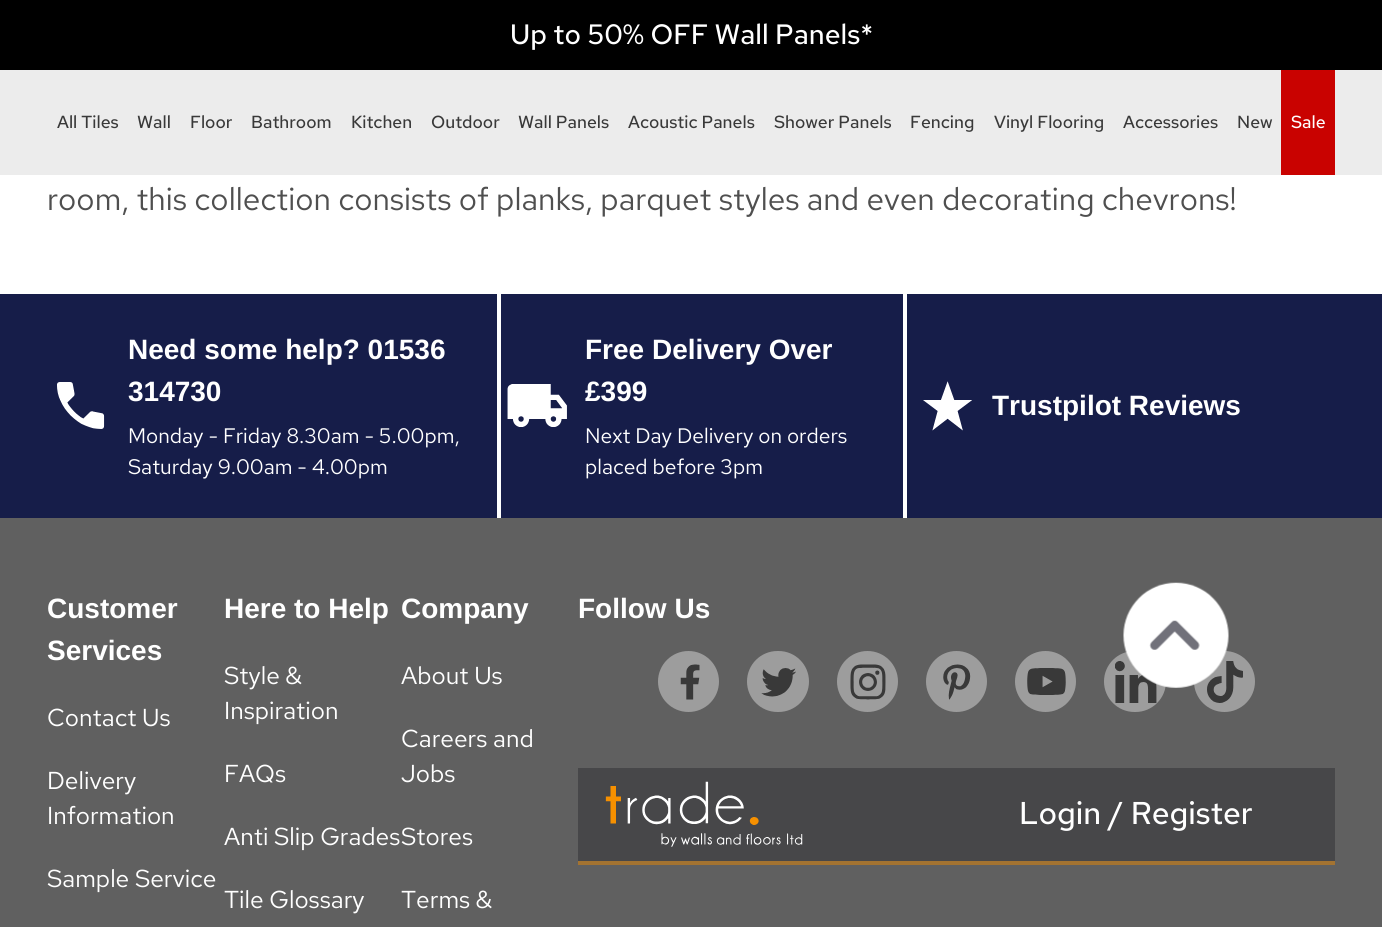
import math
import cairo


def round_path(ctx, x, y, w, h, r):
	ctx.new_sub_path()
	for i, (u, v) in enumerate([(x + w - r, y + h - r), (x + r, y + h - r), (x + r, y + r), (x + w - r, y + r)]):
		ctx.arc(u, v, r, i * math.pi / 2, (i + 1) * math.pi / 2)
	ctx.close_path()

def paste(ctx, path, x, y, w, h):
	ctx.save()
	ctx.set_source_surface(cairo.ImageSurface.create_from_png(path), x, y)
	ctx.rectangle(x, y, w, h)
	ctx.fill()
	ctx.restore()

def draw(ctx):
	ctx.set_source_rgb(1, 1, 1)
	ctx.paint()
	ctx.set_source_rgb(0, 0, 0)
	ctx.rectangle(0, 0, 1382, 70)
	ctx.fill()
	ctx.select_font_face('Red Hat Text Medium')
	ctx.set_font_size(28)
	ctx.set_source_rgb(1, 1, 1)
	ctx.move_to(510, 44)
	ctx.show_text('Up to 50% OFF Wall Panels*')
	ctx.set_source_rgb(0.925, 0.922, 0.922)
	ctx.rectangle(0, 70, 1382, 105)
	ctx.fill()
	ctx.set_font_size(17.5)
	ctx.set_source_rgb(0.224, 0.224, 0.224)
	for x, y, s in [
		(57, 128, 'All Tiles'),
		(137, 128, 'Wall'),
		(190, 128, 'Floor'),
		(251, 128, 'Bathroom'),
		(351, 128, 'Kitchen'),
		(431, 128, 'Outdoor'),
		(518, 128, 'Wall Panels'),
		(628, 128, 'Acoustic Panels'),
		(774, 128, 'Shower Panels'),
		(910, 128, 'Fencing'),
		(994, 128, 'Vinyl Flooring'),
		(1123, 128, 'Accessories'),
		(1237, 128, 'New'),
	]:
		ctx.move_to(x, y)
		ctx.show_text(s)
	ctx.set_source_rgb(0.788, 0.008, 0)
	ctx.rectangle(1281, 70, 54, 105)
	ctx.fill()
	ctx.set_source_rgb(1, 1, 1)
	ctx.move_to(1291, 128)
	ctx.show_text('Sale')
	ctx.set_source_rgb(0.376, 0.376, 0.376)
	ctx.rectangle(0, 518, 1382, 409)
	ctx.fill()
	ctx.set_source_rgb(0.616, 0.616, 0.616)
	round_path(ctx, 1104, 651, 62, 61, 30.5)
	ctx.fill()
	paste(ctx, 'media/10.png', 1115, 661, 42, 42)
	ctx.arc(1224.5, 681.5, 30.5, 0, 2 * math.pi)
	ctx.fill()
	paste(ctx, 'media/11.png', 1207, 661, 36, 42)
	paste(ctx, 'media/1.png', 1123, 582, 106, 106)
	ctx.select_font_face('Red Hat Text')
	ctx.set_font_size(31.5)
	ctx.set_source_rgb(0.31, 0.31, 0.31)
	ctx.move_to(47, 210)
	ctx.show_text('room, this collection consists of planks, parquet styles and even decorating chevrons!')
	ctx.set_source_rgb(0.086, 0.114, 0.286)
	ctx.rectangle(0, 294, 1382, 224)
	ctx.fill()
	ctx.set_source_rgb(1, 1, 1)
	ctx.rectangle(497, 294, 4, 224)
	ctx.fill()
	paste(ctx, 'media/2.png', 57, 382, 48, 47)
	ctx.select_font_face('Liberation Sans', cairo.FONT_SLANT_NORMAL, cairo.FONT_WEIGHT_BOLD)
	ctx.set_font_size(28)
	ctx.move_to(128, 359)
	ctx.show_text('Need some help? 01536')
	ctx.move_to(128, 401)
	ctx.show_text('314730')
	ctx.select_font_face('Red Hat Text')
	ctx.set_font_size(21)
	ctx.move_to(128, 443)
	ctx.show_text('Monday - Friday 8.30am - 5.00pm,')
	ctx.move_to(128, 474)
	ctx.show_text('Saturday 9.00am - 4.00pm')
	ctx.rectangle(903, 294, 4, 224)
	ctx.fill()
	paste(ctx, 'media/3.png', 507, 384, 60, 43)
	ctx.select_font_face('Liberation Sans', cairo.FONT_SLANT_NORMAL, cairo.FONT_WEIGHT_BOLD)
	ctx.set_font_size(28)
	ctx.move_to(585, 359)
	ctx.show_text('Free Delivery Over')
	ctx.move_to(585, 401)
	ctx.show_text('£399')
	ctx.select_font_face('Red Hat Text')
	ctx.set_font_size(21)
	ctx.move_to(585, 443)
	ctx.show_text('Next Day Delivery on orders')
	ctx.move_to(585, 474)
	ctx.show_text('placed before 3pm')
	paste(ctx, 'media/4.png', 923, 381, 49, 50)
	ctx.select_font_face('Liberation Sans', cairo.FONT_SLANT_NORMAL, cairo.FONT_WEIGHT_BOLD)
	ctx.set_font_size(28)
	for x, y, s in [
		(992, 415, 'Trustpilot Reviews'),
		(47, 618, 'Customer'),
		(47, 660, 'Services'),
	]:
		ctx.move_to(x, y)
		ctx.show_text(s)
	ctx.select_font_face('Red Hat Text')
	ctx.set_font_size(24.5)
	for x, y, s in [
		(47, 726, 'Contact Us'),
		(47, 789, 'Delivery'),
		(47, 824, 'Information'),
		(47, 887, 'Sample Service'),
	]:
		ctx.move_to(x, y)
		ctx.show_text(s)
	ctx.select_font_face('Liberation Sans', cairo.FONT_SLANT_NORMAL, cairo.FONT_WEIGHT_BOLD)
	ctx.set_font_size(28)
	ctx.move_to(224, 618)
	ctx.show_text('Here to Help')
	ctx.select_font_face('Red Hat Text')
	ctx.set_font_size(24.5)
	for x, y, s in [
		(224, 684, 'Style &'),
		(224, 719, 'Inspiration'),
		(224, 782, 'FAQs'),
		(224, 845, 'Anti Slip Grades'),
		(224, 908, 'Tile Glossary'),
	]:
		ctx.move_to(x, y)
		ctx.show_text(s)
	ctx.select_font_face('Liberation Sans', cairo.FONT_SLANT_NORMAL, cairo.FONT_WEIGHT_BOLD)
	ctx.set_font_size(28)
	ctx.move_to(401, 618)
	ctx.show_text('Company')
	ctx.select_font_face('Red Hat Text')
	ctx.set_font_size(24.5)
	for x, y, s in [
		(401, 684, 'About Us'),
		(401, 747, 'Careers and'),
		(401, 782, 'Jobs'),
		(401, 845, 'Stores'),
		(401, 908, 'Terms &'),
	]:
		ctx.move_to(x, y)
		ctx.show_text(s)
	ctx.select_font_face('Liberation Sans', cairo.FONT_SLANT_NORMAL, cairo.FONT_WEIGHT_BOLD)
	ctx.set_font_size(28)
	ctx.move_to(578, 618)
	ctx.show_text('Follow Us')
	ctx.set_source_rgb(0.616, 0.616, 0.616)
	ctx.new_path()
	ctx.arc(688.5, 681.5, 30.5, 0, 2 * math.pi)
	ctx.fill()
	paste(ctx, 'media/5.png', 680, 664, 20, 36)
	round_path(ctx, 747, 651, 62, 61, 30.5)
	ctx.fill()
	paste(ctx, 'media/6.png', 761, 668, 35, 29)
	ctx.arc(867.5, 681.5, 30.5, 0, 2 * math.pi)
	ctx.fill()
	paste(ctx, 'media/7.png', 850, 664, 36, 36)
	ctx.arc(956.5, 681.5, 30.5, 0, 2 * math.pi)
	ctx.fill()
	paste(ctx, 'media/8.png', 943, 664, 28, 36)
	ctx.arc(1045.5, 681.5, 30.5, 0, 2 * math.pi)
	ctx.fill()
	paste(ctx, 'media/9.png', 1027, 668, 39, 27)
	ctx.set_source_rgb(0.278, 0.278, 0.286)
	ctx.rectangle(578, 768, 757, 93)
	ctx.fill()
	ctx.set_source_rgb(0.639, 0.451, 0.192)
	ctx.rectangle(578, 861, 757, 4)
	ctx.fill()
	paste(ctx, 'media/12.png', 605, 781, 198, 66)
	ctx.select_font_face('Red Hat Text Medium')
	ctx.set_font_size(31.5)
	ctx.set_source_rgb(1, 1, 1)
	ctx.move_to(1019, 824)
	ctx.show_text('Login / Register')


surface = cairo.ImageSurface(cairo.FORMAT_RGB24, 1382, 927)
ctx = cairo.Context(surface)
options = cairo.FontOptions()
options.set_hint_metrics(cairo.HINT_METRICS_OFF)
options.set_hint_style(cairo.HINT_STYLE_NONE)
ctx.set_font_options(options)
ctx.set_miter_limit(4)
draw(ctx)
surface.write_to_png('image.png')
